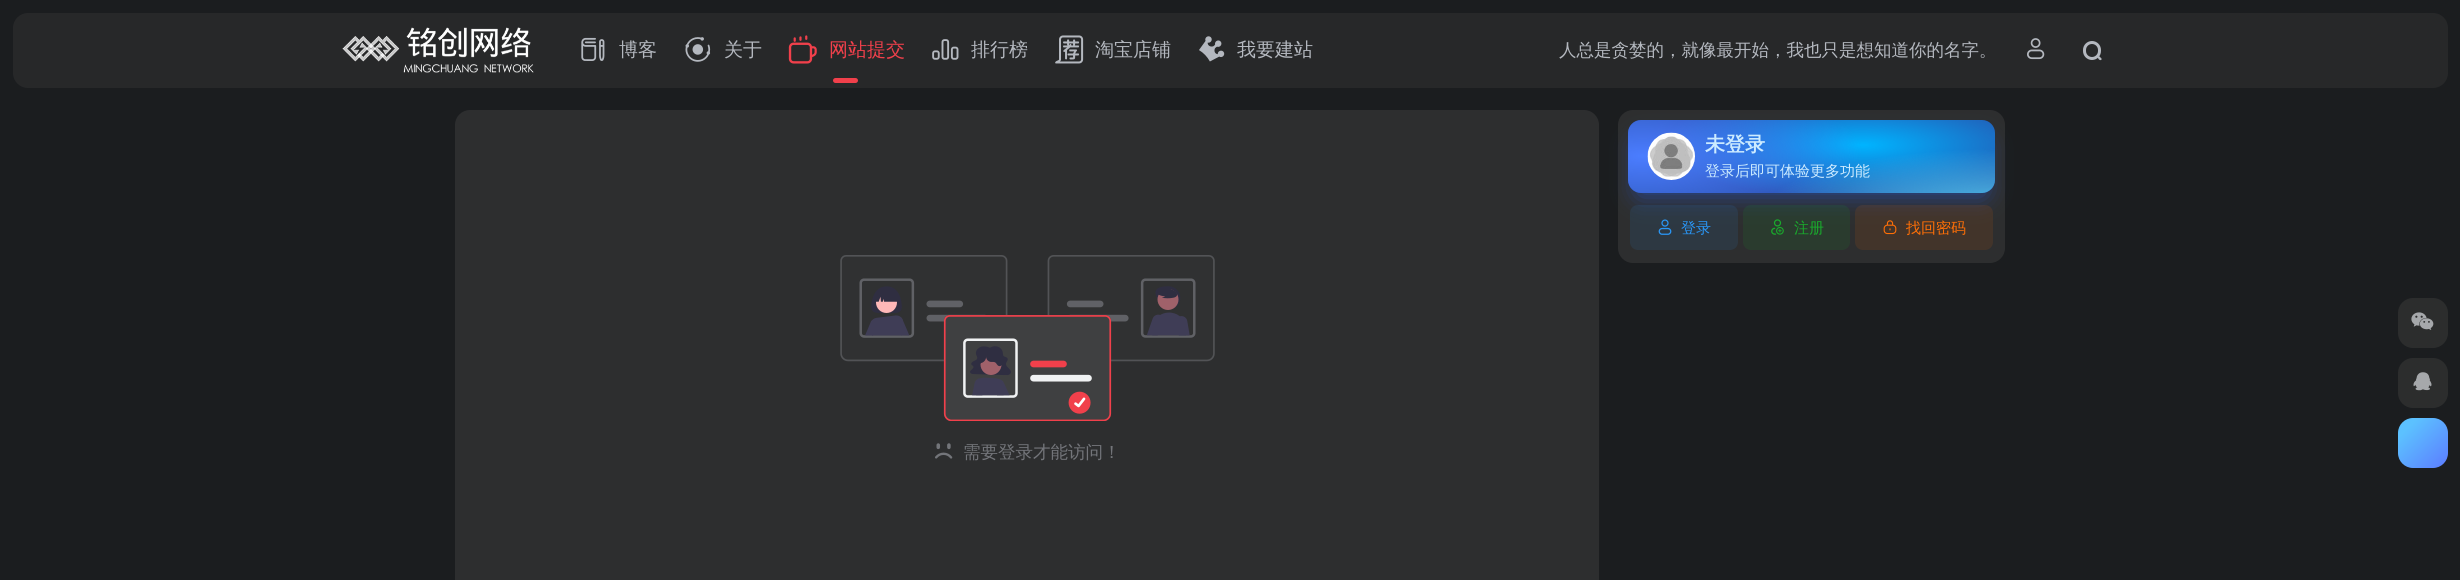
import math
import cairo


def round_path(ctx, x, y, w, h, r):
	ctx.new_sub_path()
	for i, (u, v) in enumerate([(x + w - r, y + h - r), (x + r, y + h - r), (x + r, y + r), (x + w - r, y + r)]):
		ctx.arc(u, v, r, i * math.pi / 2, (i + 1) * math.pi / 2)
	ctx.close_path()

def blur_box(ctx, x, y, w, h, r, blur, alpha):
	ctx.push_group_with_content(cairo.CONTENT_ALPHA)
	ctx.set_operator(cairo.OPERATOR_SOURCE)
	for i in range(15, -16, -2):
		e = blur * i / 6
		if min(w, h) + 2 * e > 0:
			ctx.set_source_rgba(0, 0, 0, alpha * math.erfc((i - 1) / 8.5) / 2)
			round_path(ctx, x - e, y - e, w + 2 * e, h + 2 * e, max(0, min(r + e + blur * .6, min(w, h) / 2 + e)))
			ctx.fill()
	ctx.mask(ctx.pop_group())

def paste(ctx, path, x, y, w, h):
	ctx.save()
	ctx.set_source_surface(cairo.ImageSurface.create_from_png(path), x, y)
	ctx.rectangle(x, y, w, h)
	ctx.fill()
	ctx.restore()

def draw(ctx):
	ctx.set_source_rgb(0.106, 0.114, 0.122)
	ctx.paint()
	ctx.set_source_rgb(0.153, 0.157, 0.161)
	round_path(ctx, 13, 13, 2435, 75, 15)
	ctx.fill()
	paste(ctx, 'media/1.png', 342, 27, 192, 46)
	paste(ctx, 'media/2.png', 581, 37, 24, 24)
	ctx.select_font_face('WenQuanYi Zen Hei Medium')
	ctx.set_font_size(19)
	ctx.set_source_rgb(0.706, 0.722, 0.749)
	ctx.move_to(619, 56)
	ctx.show_text('博客')
	paste(ctx, 'media/3.png', 685, 37, 26, 25)
	ctx.move_to(724, 56)
	ctx.show_text('关于')
	paste(ctx, 'media/4.png', 788, 35, 29, 29)
	ctx.set_source_rgb(0.945, 0.251, 0.294)
	ctx.move_to(829, 56)
	ctx.show_text('网站提交')
	round_path(ctx, 833, 78, 25, 5, 2.5)
	ctx.fill()
	paste(ctx, 'media/5.png', 932, 39, 27, 21)
	ctx.set_source_rgb(0.706, 0.722, 0.749)
	ctx.move_to(971, 56)
	ctx.show_text('排行榜')
	paste(ctx, 'media/6.png', 1055, 35, 29, 29)
	ctx.move_to(1095, 56)
	ctx.show_text('淘宝店铺')
	paste(ctx, 'media/7.png', 1199, 36, 26, 26)
	ctx.move_to(1237, 56)
	ctx.show_text('我要建站')
	ctx.set_font_size(17.5)
	ctx.move_to(1559, 56)
	ctx.show_text('人总是贪婪的，就像最开始，我也只是想知道你的名字。')
	paste(ctx, 'media/8.png', 2027, 38, 18, 22)
	round_path(ctx, 2084.5, 42.5, 15, 16, 7.5)
	ctx.set_line_width(3)
	ctx.stroke()
	ctx.new_path()
	ctx.move_to(2099.5, 56.5)
	ctx.line_to(2101.5, 58.5)
	ctx.curve_to(2102, 60.5, 2100, 60.5, 2099, 59.5)
	ctx.line_to(2097.5, 57.5)
	ctx.curve_to(2097, 56.5, 2098.5, 55.5, 2099.5, 56.5)
	ctx.close_path()
	ctx.fill()
	ctx.set_source_rgb(0.176, 0.18, 0.184)
	round_path(ctx, 1618, 110, 387, 153, 15)
	ctx.fill()
	ctx.set_source_rgb(0.157, 0.306, 0.667)
	blur_box(ctx, 1640, 145, 343, 48, 0, 12.5, 1)
	ctx.set_source_rgb(0.157, 0.306, 0.667)
	round_path(ctx, 1628, 120, 367, 73, 13)
	ctx.fill()
	gradient = cairo.RadialGradient(0, 0, 0, 0, 0, 1)
	gradient.set_matrix(cairo.Matrix(1 / 202, 0, 0, 1 / 54, -1 * 1863 / 202, -1 * 145 / 54))
	gradient.add_color_stop_rgba(0, 0, 0.706, 1, 1)
	gradient.add_color_stop_rgba(1, 0, 0.706, 1, 0)
	ctx.set_source(gradient)
	ctx.new_path()
	ctx.move_to(1660, 120)
	ctx.line_to(1982, 120)
	ctx.curve_to(1989, 120, 1995, 126, 1995, 133)
	ctx.line_to(1995, 180)
	ctx.curve_to(1995, 187, 1989, 193, 1982, 193)
	ctx.line_to(1660, 193)
	ctx.close_path()
	ctx.fill()
	gradient = cairo.RadialGradient(0, 0, 0, 0, 0, 1)
	gradient.set_matrix(cairo.Matrix(1 / 221, 0, 0, 1 / 80, -1 * 1642 / 221, -1 * 156 / 80))
	gradient.add_color_stop_rgba(0, 0.294, 0.49, 1, 1)
	gradient.add_color_stop_rgba(1, 0.294, 0.49, 1, 0)
	ctx.set_source(gradient)
	ctx.new_path()
	ctx.move_to(1641, 120)
	ctx.line_to(1863, 120)
	ctx.line_to(1863, 193)
	ctx.line_to(1641, 193)
	ctx.curve_to(1634, 193, 1628, 187, 1628, 180)
	ctx.line_to(1628, 133)
	ctx.curve_to(1628, 126, 1634, 120, 1641, 120)
	ctx.close_path()
	ctx.fill()
	gradient = cairo.RadialGradient(0, 0, 0, 0, 0, 1)
	gradient.set_matrix(cairo.Matrix(1 / 239, 0, 0, 1 / 65, -1 * 1999 / 239, -1 * 214 / 65))
	gradient.add_color_stop_rgba(0, 0.329, 0.827, 0.949, 1)
	gradient.add_color_stop_rgba(1, 0.329, 0.827, 0.949, 0)
	ctx.set_source(gradient)
	ctx.new_path()
	ctx.move_to(1760, 149)
	ctx.line_to(1995, 149)
	ctx.line_to(1995, 180)
	ctx.curve_to(1995, 187, 1989, 193, 1982, 193)
	ctx.line_to(1760, 193)
	ctx.close_path()
	ctx.fill()
	paste(ctx, 'media/9.png', 1647, 132, 48, 48)
	ctx.select_font_face('WenQuanYi Zen Hei', cairo.FONT_SLANT_NORMAL, cairo.FONT_WEIGHT_BOLD)
	ctx.set_font_size(20)
	ctx.set_source_rgb(0.8, 0.918, 1)
	ctx.move_to(1705, 151)
	ctx.show_text('未登录')
	ctx.select_font_face('WenQuanYi Zen Hei Medium')
	ctx.set_font_size(15)
	ctx.move_to(1705, 176)
	ctx.show_text('登录后即可体验更多功能')
	ctx.set_source_rgba(0.161, 0.592, 0.969, 0.1)
	round_path(ctx, 1630, 205, 108, 45, 8)
	ctx.fill()
	paste(ctx, 'media/10.png', 1658, 219, 14, 16)
	ctx.set_source_rgb(0.161, 0.592, 0.969)
	ctx.move_to(1681, 233)
	ctx.show_text('登录')
	ctx.set_source_rgba(0.075, 0.737, 0.161, 0.1)
	round_path(ctx, 1743, 205, 107, 45, 8)
	ctx.fill()
	paste(ctx, 'media/11.png', 1771, 219, 13, 16)
	ctx.set_source_rgb(0.098, 0.667, 0.173)
	ctx.move_to(1794, 233)
	ctx.show_text('注册')
	ctx.set_source_rgba(1, 0.431, 0.024, 0.1)
	round_path(ctx, 1855, 205, 138, 45, 8)
	ctx.fill()
	paste(ctx, 'media/12.png', 1883, 220, 14, 15)
	ctx.set_source_rgb(1, 0.435, 0.024)
	ctx.move_to(1906, 233)
	ctx.show_text('找回密码')
	ctx.set_source_rgb(0.176, 0.18, 0.184)
	round_path(ctx, 455, 110, 1144, 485, 15)
	ctx.fill()
	paste(ctx, 'media/13.png', 840, 255, 375, 166)
	paste(ctx, 'media/14.png', 935, 443, 18, 16)
	ctx.set_font_size(17.5)
	ctx.set_source_rgb(0.451, 0.459, 0.478)
	ctx.move_to(963, 458)
	ctx.show_text('需要登录才能访问！')
	ctx.set_source_rgb(0.173, 0.176, 0.176)
	round_path(ctx, 2398, 298, 50, 50, 15)
	ctx.fill()
	paste(ctx, 'media/15.png', 2411, 312, 23, 18)
	round_path(ctx, 2398, 358, 50, 50, 15)
	ctx.fill()
	paste(ctx, 'media/16.png', 2413, 372, 19, 19)
	gradient = cairo.LinearGradient(2398, 418, 2448, 468)
	gradient.add_color_stop_rgba(0.2, 0.361, 0.757, 1, 1)
	gradient.add_color_stop_rgba(1, 0.361, 0.486, 1, 1)
	ctx.set_source(gradient)
	round_path(ctx, 2398, 418, 50, 50, 15)
	ctx.fill()


surface = cairo.ImageSurface(cairo.FORMAT_RGB24, 2460, 580)
ctx = cairo.Context(surface)
options = cairo.FontOptions()
options.set_hint_metrics(cairo.HINT_METRICS_OFF)
options.set_hint_style(cairo.HINT_STYLE_NONE)
ctx.set_font_options(options)
ctx.set_miter_limit(4)
draw(ctx)
surface.write_to_png('image.png')
